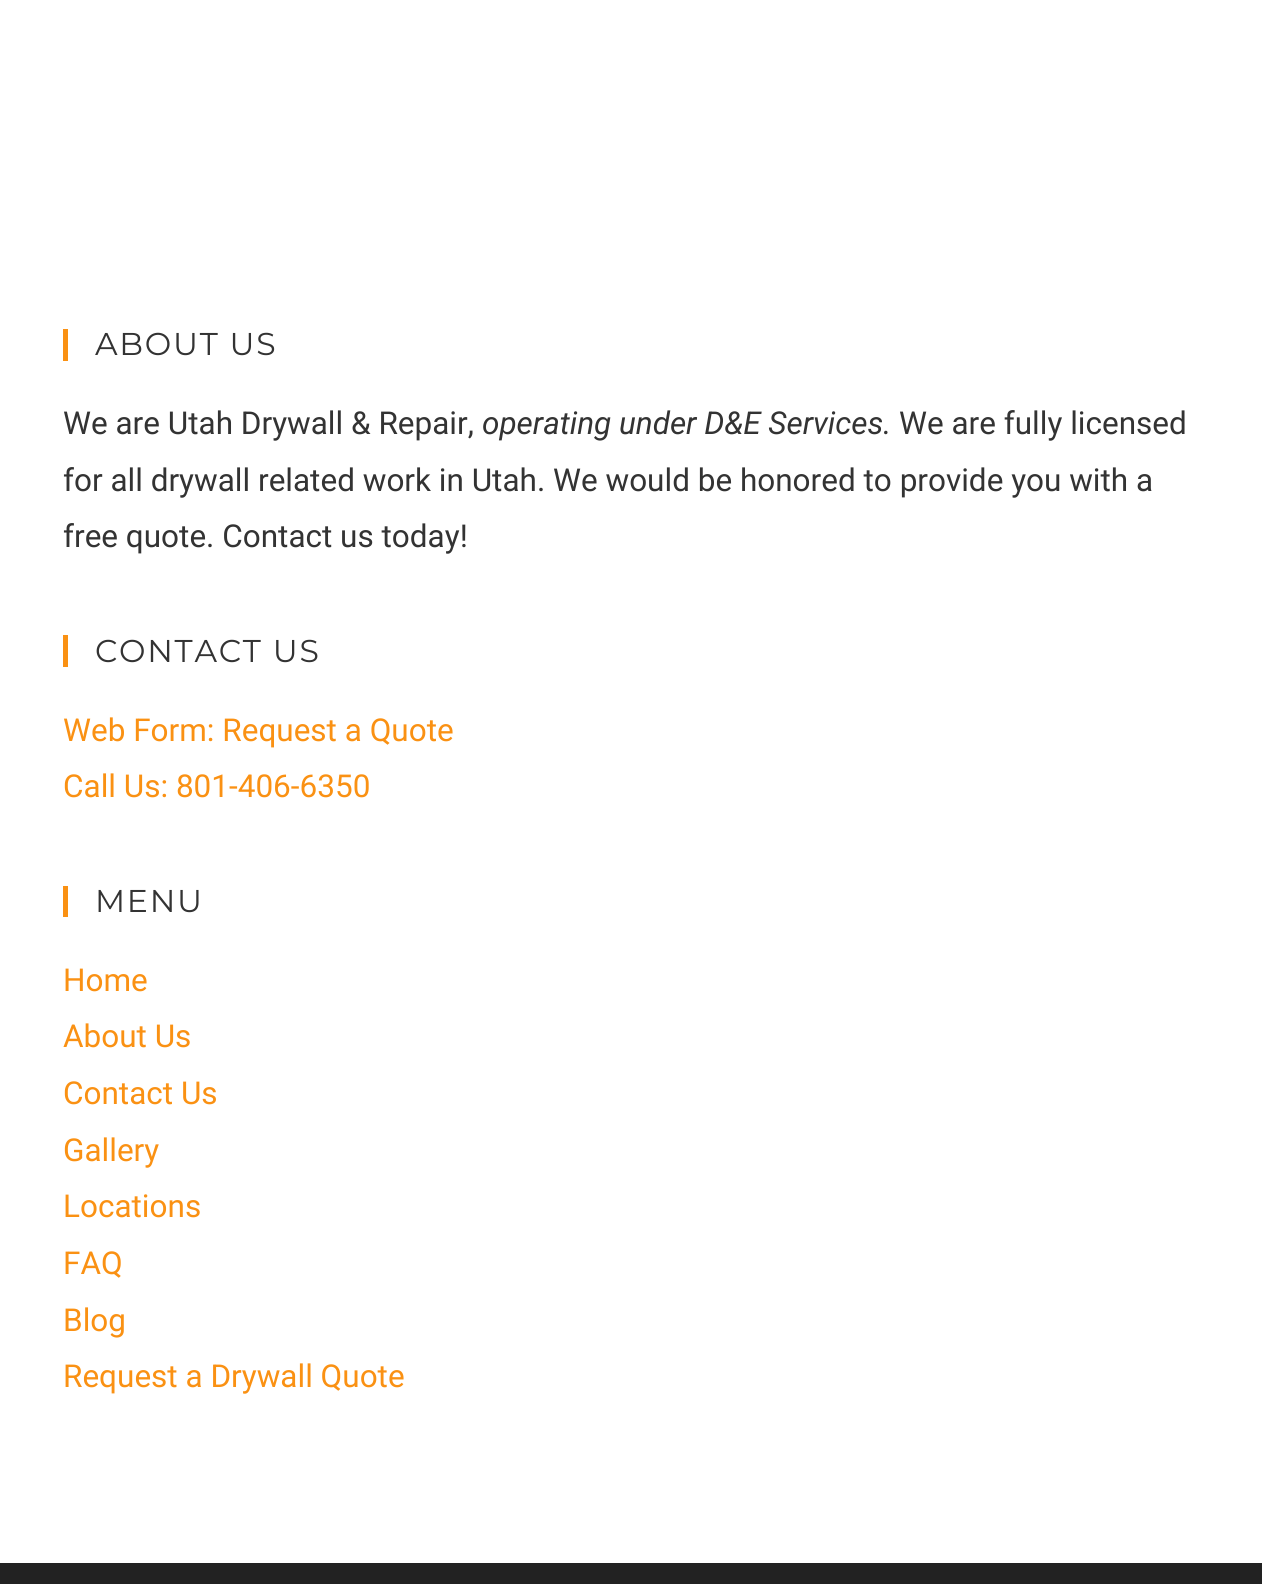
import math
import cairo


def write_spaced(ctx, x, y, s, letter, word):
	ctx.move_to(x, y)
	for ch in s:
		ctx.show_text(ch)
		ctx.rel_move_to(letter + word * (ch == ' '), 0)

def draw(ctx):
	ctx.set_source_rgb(1, 1, 1)
	ctx.paint()
	ctx.set_source_rgb(0.98, 0.569, 0.075)
	ctx.rectangle(63, 329, 5, 32)
	ctx.fill()
	ctx.select_font_face('Montserrat')
	ctx.set_font_size(31.5)
	ctx.set_source_rgb(0.2, 0.2, 0.2)
	write_spaced(ctx, 95, 355, 'ABOUT US', 1.75, 0)
	ctx.select_font_face('Roboto')
	ctx.move_to(63, 434)
	ctx.show_text('We are Utah Drywall & Repair,')
	ctx.select_font_face('Roboto', cairo.FONT_SLANT_ITALIC)
	ctx.move_to(482, 434)
	ctx.show_text('operating under D&E Services.')
	ctx.select_font_face('Roboto')
	for x, y, s in [
		(899, 434, 'We are fully licensed'),
		(63, 491, 'for all drywall related work in Utah. We would be honored to provide you with a'),
		(63, 547, 'free quote. Contact us today!'),
	]:
		ctx.move_to(x, y)
		ctx.show_text(s)
	ctx.set_source_rgb(0.98, 0.569, 0.075)
	ctx.rectangle(63, 635, 5, 32)
	ctx.fill()
	ctx.select_font_face('Montserrat')
	ctx.set_source_rgb(0.2, 0.2, 0.2)
	write_spaced(ctx, 95, 662, 'CONTACT US', 1.75, 0)
	ctx.select_font_face('Roboto')
	ctx.set_source_rgb(0.98, 0.569, 0.075)
	ctx.move_to(63, 741)
	ctx.show_text('Web Form: Request a Quote')
	ctx.move_to(63, 797)
	ctx.show_text('Call Us: 801-406-6350')
	ctx.rectangle(63, 886, 5, 31)
	ctx.fill()
	ctx.select_font_face('Montserrat')
	ctx.set_source_rgb(0.2, 0.2, 0.2)
	write_spaced(ctx, 95, 912, 'MENU', 1.75, 0)
	ctx.select_font_face('Roboto')
	ctx.set_source_rgb(0.98, 0.569, 0.075)
	for x, y, s in [
		(63, 991, 'Home'),
		(63, 1047, 'About Us'),
		(63, 1104, 'Contact Us'),
		(63, 1161, 'Gallery'),
		(63, 1217, 'Locations'),
		(63, 1274, 'FAQ'),
		(63, 1331, 'Blog'),
		(63, 1387, 'Request a Drywall Quote'),
	]:
		ctx.move_to(x, y)
		ctx.show_text(s)
	ctx.set_source_rgb(0.133, 0.133, 0.133)
	ctx.rectangle(0, 1563, 1262, 21)
	ctx.fill()


surface = cairo.ImageSurface(cairo.FORMAT_RGB24, 1262, 1584)
ctx = cairo.Context(surface)
options = cairo.FontOptions()
options.set_hint_metrics(cairo.HINT_METRICS_OFF)
options.set_hint_style(cairo.HINT_STYLE_NONE)
ctx.set_font_options(options)
ctx.set_miter_limit(4)
draw(ctx)
surface.write_to_png('image.png')
